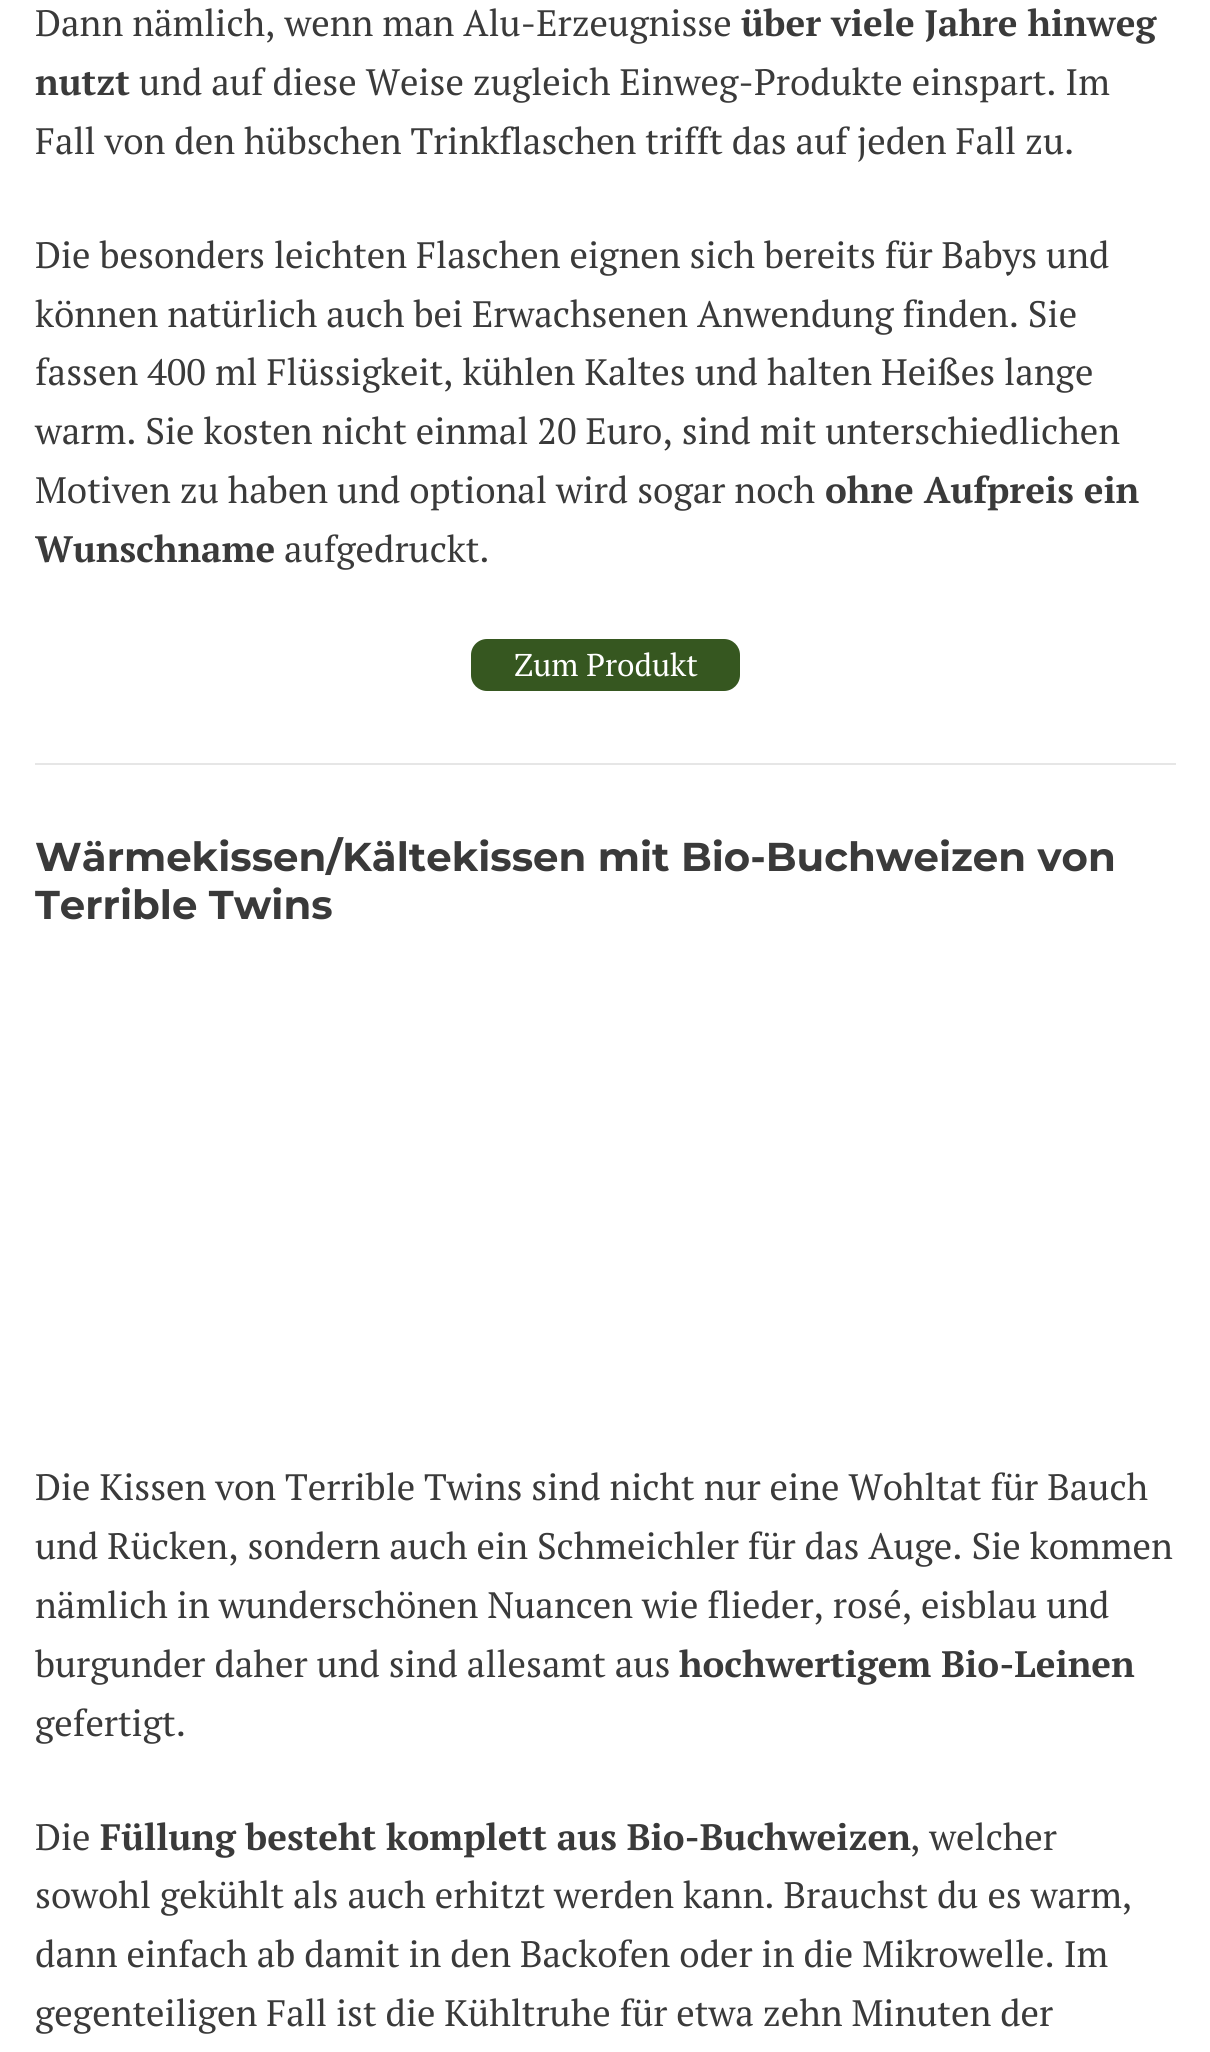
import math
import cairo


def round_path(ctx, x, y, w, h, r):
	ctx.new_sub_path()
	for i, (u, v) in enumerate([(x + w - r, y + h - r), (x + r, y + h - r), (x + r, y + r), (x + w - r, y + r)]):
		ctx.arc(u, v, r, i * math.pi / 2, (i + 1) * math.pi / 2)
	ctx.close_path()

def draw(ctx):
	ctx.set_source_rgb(1, 1, 1)
	ctx.paint()
	ctx.select_font_face('PT Serif')
	ctx.set_font_size(36.75)
	ctx.set_source_rgb(0.227, 0.227, 0.227)
	ctx.move_to(35, 36)
	ctx.show_text('Dann nämlich, wenn man Alu-Erzeugnisse')
	ctx.select_font_face('PT Serif', cairo.FONT_SLANT_NORMAL, cairo.FONT_WEIGHT_BOLD)
	ctx.move_to(741, 36)
	ctx.show_text('über viele Jahre hinweg')
	ctx.move_to(35, 95)
	ctx.show_text('nutzt')
	ctx.select_font_face('PT Serif')
	for x, y, s in [
		(139, 95, 'und auf diese Weise zugleich Einweg-Produkte einspart. Im'),
		(35, 154, 'Fall von den hübschen Trinkflaschen trifft das auf jeden Fall zu.'),
		(35, 268, 'Die besonders leichten Flaschen eignen sich bereits für Babys und'),
		(35, 327, 'können natürlich auch bei Erwachsenen Anwendung finden. Sie'),
		(35, 385, 'fassen 400 ml Flüssigkeit, kühlen Kaltes und halten Heißes lange'),
		(35, 444, 'warm. Sie kosten nicht einmal 20 Euro, sind mit unterschiedlichen'),
		(35, 503, 'Motiven zu haben und optional wird sogar noch'),
	]:
		ctx.move_to(x, y)
		ctx.show_text(s)
	ctx.select_font_face('PT Serif', cairo.FONT_SLANT_NORMAL, cairo.FONT_WEIGHT_BOLD)
	ctx.move_to(825, 503)
	ctx.show_text('ohne Aufpreis ein')
	ctx.move_to(35, 562)
	ctx.show_text('Wunschname')
	ctx.select_font_face('PT Serif')
	ctx.move_to(284, 562)
	ctx.show_text('aufgedruckt.')
	ctx.set_source_rgb(0.212, 0.341, 0.125)
	round_path(ctx, 471, 639, 269, 52, 16)
	ctx.fill()
	ctx.set_font_size(31.5)
	ctx.set_source_rgb(1, 1, 1)
	ctx.move_to(514, 676)
	ctx.show_text('Zum Produkt')
	ctx.set_source_rgb(0.902, 0.902, 0.902)
	ctx.rectangle(35, 763, 1141, 2)
	ctx.fill()
	ctx.select_font_face('Montserrat', cairo.FONT_SLANT_NORMAL, cairo.FONT_WEIGHT_BOLD)
	ctx.set_font_size(40.25)
	ctx.set_source_rgb(0.227, 0.227, 0.227)
	ctx.move_to(35, 871)
	ctx.show_text('Wärmekissen/Kältekissen mit Bio-Buchweizen von')
	ctx.move_to(35, 919)
	ctx.show_text('Terrible Twins')
	ctx.select_font_face('PT Serif')
	ctx.set_font_size(36.75)
	for x, y, s in [
		(35, 1500, 'Die Kissen von Terrible Twins sind nicht nur eine Wohltat für Bauch'),
		(35, 1559, 'und Rücken, sondern auch ein Schmeichler für das Auge. Sie kommen'),
		(35, 1618, 'nämlich in wunderschönen Nuancen wie flieder, rosé, eisblau und'),
		(35, 1677, 'burgunder daher und sind allesamt aus'),
	]:
		ctx.move_to(x, y)
		ctx.show_text(s)
	ctx.select_font_face('PT Serif', cairo.FONT_SLANT_NORMAL, cairo.FONT_WEIGHT_BOLD)
	ctx.move_to(679, 1677)
	ctx.show_text('hochwertigem Bio-Leinen')
	ctx.select_font_face('PT Serif')
	ctx.move_to(35, 1736)
	ctx.show_text('gefertigt.')
	ctx.move_to(35, 1850)
	ctx.show_text('Die')
	ctx.select_font_face('PT Serif', cairo.FONT_SLANT_NORMAL, cairo.FONT_WEIGHT_BOLD)
	ctx.move_to(100, 1850)
	ctx.show_text('Füllung besteht komplett aus Bio-Buchweizen')
	ctx.select_font_face('PT Serif')
	for x, y, s in [
		(910, 1850, ', welcher'),
		(35, 1908, 'sowohl gekühlt als auch erhitzt werden kann. Brauchst du es warm,'),
		(35, 1967, 'dann einfach ab damit in den Backofen oder in die Mikrowelle. Im'),
		(35, 2026, 'gegenteiligen Fall ist die Kühltruhe für etwa zehn Minuten der'),
	]:
		ctx.move_to(x, y)
		ctx.show_text(s)


surface = cairo.ImageSurface(cairo.FORMAT_RGB24, 1210, 2052)
ctx = cairo.Context(surface)
options = cairo.FontOptions()
options.set_hint_metrics(cairo.HINT_METRICS_OFF)
options.set_hint_style(cairo.HINT_STYLE_NONE)
ctx.set_font_options(options)
ctx.set_miter_limit(4)
draw(ctx)
surface.write_to_png('image.png')
